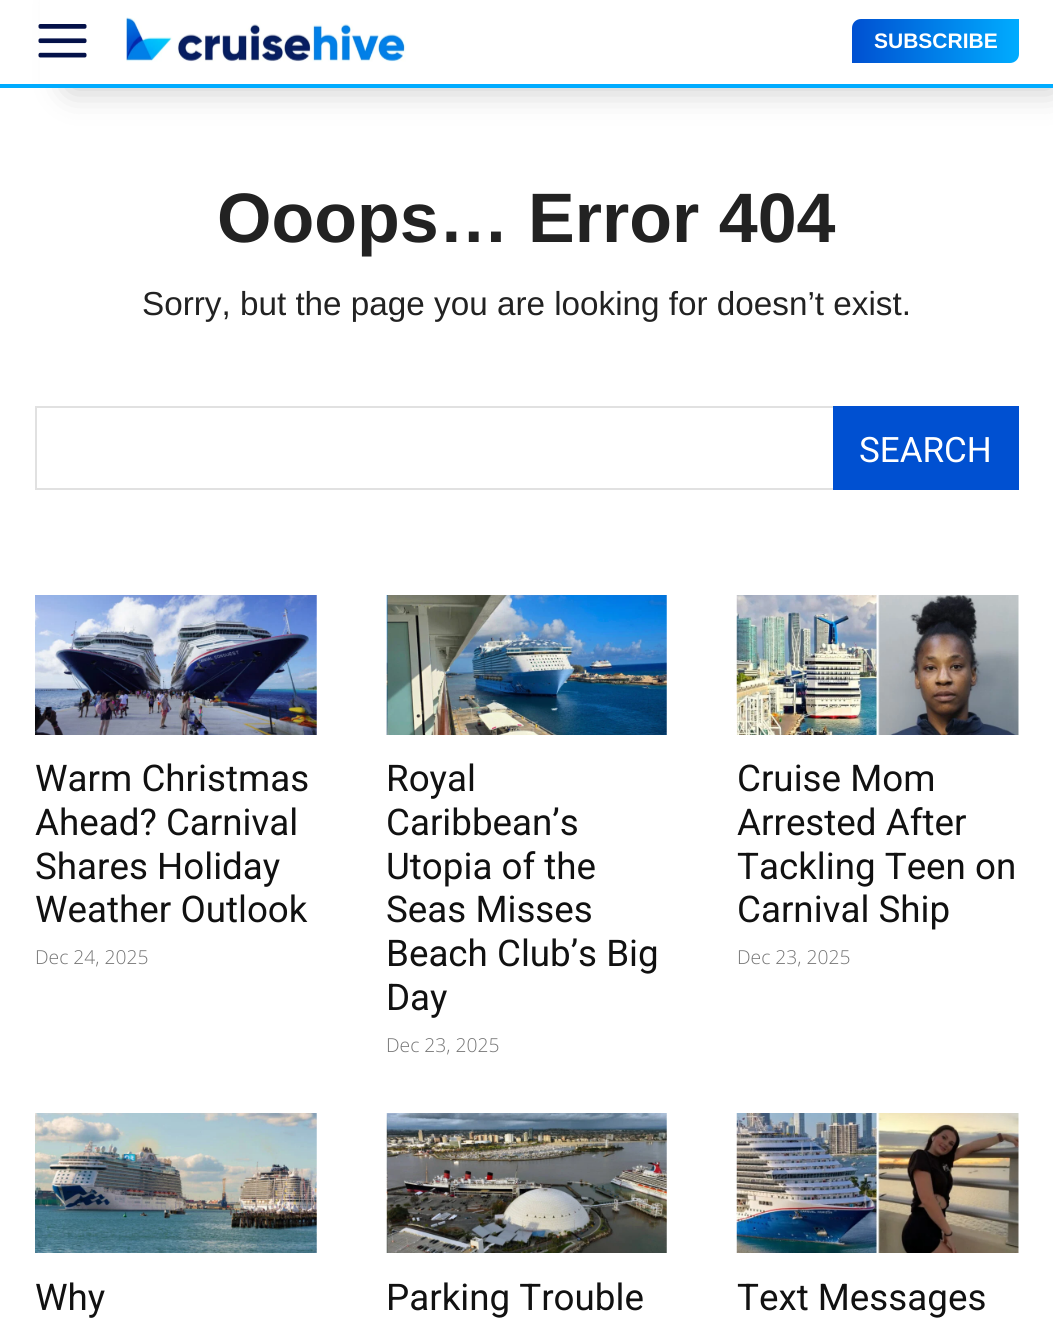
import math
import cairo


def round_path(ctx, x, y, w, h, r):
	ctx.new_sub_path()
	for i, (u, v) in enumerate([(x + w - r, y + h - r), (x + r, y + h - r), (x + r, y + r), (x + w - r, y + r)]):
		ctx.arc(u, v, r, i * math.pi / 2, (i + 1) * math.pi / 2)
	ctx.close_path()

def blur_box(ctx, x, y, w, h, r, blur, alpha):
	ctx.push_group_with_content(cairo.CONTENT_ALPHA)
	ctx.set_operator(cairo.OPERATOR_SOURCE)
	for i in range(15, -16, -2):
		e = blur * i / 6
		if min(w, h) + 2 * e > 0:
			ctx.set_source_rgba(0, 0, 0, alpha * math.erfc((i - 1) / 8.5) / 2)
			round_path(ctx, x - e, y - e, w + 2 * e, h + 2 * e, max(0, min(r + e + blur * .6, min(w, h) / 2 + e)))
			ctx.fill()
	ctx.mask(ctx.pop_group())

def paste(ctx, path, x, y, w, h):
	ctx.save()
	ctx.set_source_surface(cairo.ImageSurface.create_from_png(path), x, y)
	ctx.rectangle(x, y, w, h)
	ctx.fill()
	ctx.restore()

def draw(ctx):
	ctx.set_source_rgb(1, 1, 1)
	ctx.paint()
	ctx.set_source_rgb(0, 0, 0)
	blur_box(ctx, 70, 0, 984, 88, 0, 17.5, 0.24)
	ctx.set_source_rgb(1, 1, 1)
	ctx.rectangle(40, 0, 1013, 84)
	ctx.fill()
	ctx.set_source_rgb(0, 0.675, 1)
	ctx.rectangle(0, 84, 1053, 4)
	ctx.fill()
	paste(ctx, 'media/1.png', 38, 24, 49, 34)
	paste(ctx, 'media/2.png', 126, 17, 280, 45)
	gradient = cairo.LinearGradient(1019, 41, 852, 41)
	gradient.add_color_stop_rgba(0, 0, 0.675, 1, 1)
	gradient.add_color_stop_rgba(1, 0, 0.314, 0.82, 1)
	ctx.set_source(gradient)
	ctx.new_path()
	ctx.move_to(861, 19)
	ctx.line_to(1019, 19)
	ctx.line_to(1019, 54)
	ctx.curve_to(1019, 59, 1015, 63, 1010, 63)
	ctx.line_to(852, 63)
	ctx.line_to(852, 28)
	ctx.curve_to(852, 23, 856, 19, 861, 19)
	ctx.close_path()
	ctx.fill()
	ctx.select_font_face('Liberation Sans', cairo.FONT_SLANT_NORMAL, cairo.FONT_WEIGHT_BOLD)
	ctx.set_font_size(21)
	ctx.set_source_rgb(1, 1, 1)
	ctx.move_to(874, 48)
	ctx.show_text('SUBSCRIBE')
	ctx.set_font_size(70)
	ctx.set_source_rgb(0.133, 0.133, 0.133)
	ctx.move_to(217, 242)
	ctx.show_text('Ooops… Error 404')
	ctx.select_font_face('Liberation Sans')
	ctx.set_font_size(33.25)
	ctx.move_to(142, 315)
	ctx.show_text('Sorry, but the page you are looking for doesn’t exist.')
	ctx.rectangle(36, 407, 982, 82)
	ctx.set_source_rgb(0.882, 0.882, 0.882)
	ctx.stroke()
	ctx.set_source_rgb(0, 0.314, 0.82)
	ctx.rectangle(833, 406, 186, 84)
	ctx.fill()
	ctx.select_font_face('Roboto')
	ctx.set_font_size(35)
	ctx.set_source_rgb(1, 1, 1)
	ctx.move_to(859, 462)
	ctx.show_text('SEARCH')
	paste(ctx, 'media/3.png', 35, 595, 282, 140)
	ctx.set_font_size(36.75)
	ctx.set_source_rgb(0.067, 0.067, 0.067)
	for x, y, s in [
		(35, 791, 'Warm Christmas'),
		(35, 835, 'Ahead? Carnival'),
		(35, 879, 'Shares Holiday'),
		(35, 922, 'Weather Outlook'),
	]:
		ctx.move_to(x, y)
		ctx.show_text(s)
	ctx.select_font_face('Open Sans Light')
	ctx.set_font_size(19.25)
	ctx.set_source_rgb(0.463, 0.463, 0.463)
	ctx.move_to(35, 964)
	ctx.show_text('Dec 24, 2025')
	paste(ctx, 'media/4.png', 386, 595, 281, 140)
	ctx.select_font_face('Roboto')
	ctx.set_font_size(36.75)
	ctx.set_source_rgb(0.067, 0.067, 0.067)
	for x, y, s in [
		(386, 791, 'Royal'),
		(386, 835, 'Caribbean’s'),
		(386, 879, 'Utopia of the'),
		(386, 922, 'Seas Misses'),
		(386, 966, 'Beach Club’s Big'),
		(386, 1010, 'Day'),
	]:
		ctx.move_to(x, y)
		ctx.show_text(s)
	ctx.select_font_face('Open Sans Light')
	ctx.set_font_size(19.25)
	ctx.set_source_rgb(0.463, 0.463, 0.463)
	ctx.move_to(386, 1052)
	ctx.show_text('Dec 23, 2025')
	paste(ctx, 'media/5.png', 736, 595, 283, 140)
	ctx.select_font_face('Roboto')
	ctx.set_font_size(36.75)
	ctx.set_source_rgb(0.067, 0.067, 0.067)
	for x, y, s in [
		(737, 791, 'Cruise Mom'),
		(737, 835, 'Arrested After'),
		(737, 879, 'Tackling Teen on'),
		(737, 922, 'Carnival Ship'),
	]:
		ctx.move_to(x, y)
		ctx.show_text(s)
	ctx.select_font_face('Open Sans Light')
	ctx.set_font_size(19.25)
	ctx.set_source_rgb(0.463, 0.463, 0.463)
	ctx.move_to(737, 964)
	ctx.show_text('Dec 23, 2025')
	paste(ctx, 'media/6.png', 35, 1113, 282, 140)
	ctx.select_font_face('Roboto')
	ctx.set_font_size(36.75)
	ctx.set_source_rgb(0.067, 0.067, 0.067)
	ctx.move_to(35, 1310)
	ctx.show_text('Why')
	paste(ctx, 'media/7.png', 386, 1113, 281, 140)
	ctx.move_to(386, 1310)
	ctx.show_text('Parking Trouble')
	paste(ctx, 'media/8.png', 736, 1113, 283, 140)
	ctx.move_to(737, 1310)
	ctx.show_text('Text Messages')


surface = cairo.ImageSurface(cairo.FORMAT_RGB24, 1053, 1333)
ctx = cairo.Context(surface)
options = cairo.FontOptions()
options.set_hint_metrics(cairo.HINT_METRICS_OFF)
options.set_hint_style(cairo.HINT_STYLE_NONE)
ctx.set_font_options(options)
ctx.set_miter_limit(4)
draw(ctx)
surface.write_to_png('image.png')
